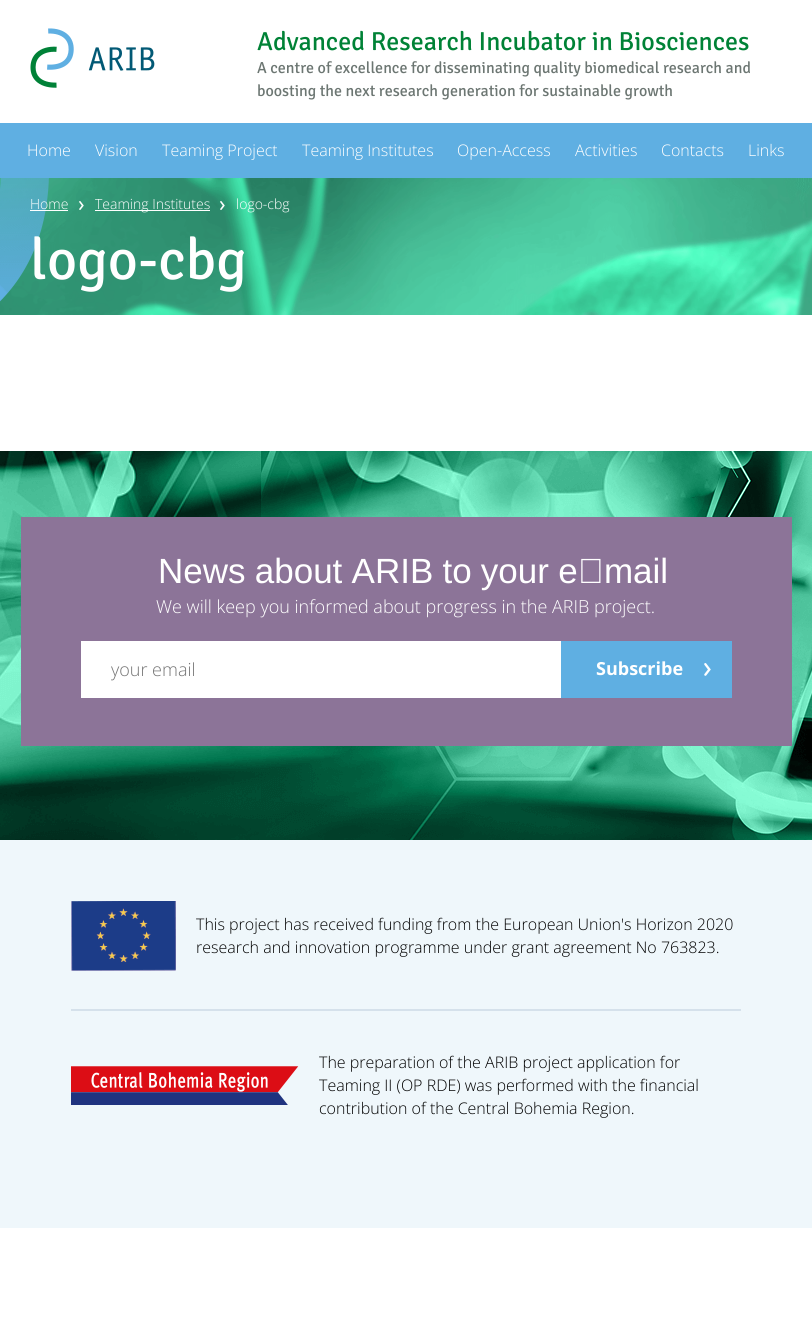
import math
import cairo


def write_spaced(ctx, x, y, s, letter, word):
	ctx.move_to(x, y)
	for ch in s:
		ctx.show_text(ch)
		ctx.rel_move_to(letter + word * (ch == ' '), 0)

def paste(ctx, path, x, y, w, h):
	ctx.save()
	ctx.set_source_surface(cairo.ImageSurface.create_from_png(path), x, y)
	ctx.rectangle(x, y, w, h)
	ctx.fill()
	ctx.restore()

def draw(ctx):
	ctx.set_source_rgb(1, 1, 1)
	ctx.paint()
	paste(ctx, 'media/1.png', 30, 28, 125, 60)
	ctx.select_font_face('Signika Light')
	ctx.set_font_size(26)
	ctx.set_source_rgb(0, 0.51, 0.212)
	ctx.move_to(257, 50)
	ctx.show_text('Advanced Research Incubator in Biosciences')
	ctx.set_font_size(16)
	ctx.set_source_rgb(0.424, 0.463, 0.447)
	ctx.move_to(257, 73)
	ctx.show_text('A centre of excellence for disseminating quality biomedical research and')
	ctx.move_to(257, 96)
	ctx.show_text('boosting the next research generation for sustainable growth')
	paste(ctx, 'media/2.png', 0, 178, 812, 137)
	ctx.set_source_rgb(0.373, 0.686, 0.886)
	ctx.rectangle(0, 123, 812, 55)
	ctx.fill()
	ctx.select_font_face('Open Sans Light')
	ctx.set_source_rgb(1, 1, 1)
	for x, y, s in [
		(27, 156, 'Home'),
		(95, 156, 'Vision'),
		(162, 156, 'Teaming Project'),
		(302, 156, 'Teaming Institutes'),
		(457, 156, 'Open-Access'),
		(575, 156, 'Activities'),
		(661, 156, 'Contacts'),
		(748, 156, 'Links'),
	]:
		ctx.move_to(x, y)
		ctx.show_text(s)
	paste(ctx, 'media/3.png', 0, 178, 49, 124)
	ctx.set_font_size(14)
	ctx.move_to(30, 209)
	ctx.show_text('Home')
	ctx.rectangle(30, 210, 38, 1)
	ctx.fill()
	paste(ctx, 'media/4.png', 79, 201, 5, 9)
	ctx.rectangle(95, 210, 115, 1)
	ctx.fill()
	ctx.move_to(95, 209)
	ctx.show_text('Teaming Institutes')
	paste(ctx, 'media/5.png', 220, 201, 5, 9)
	ctx.move_to(236, 209)
	ctx.show_text('logo-cbg')
	ctx.select_font_face('Signika Light')
	ctx.set_font_size(58)
	ctx.move_to(30, 279)
	ctx.show_text('logo-cbg')
	paste(ctx, 'media/6.png', 0, 451, 812, 389)
	ctx.set_source_rgb(0.549, 0.455, 0.596)
	ctx.rectangle(21, 517, 771, 229)
	ctx.fill()
	ctx.select_font_face('Liberation Sans')
	ctx.set_font_size(35)
	ctx.set_source_rgb(1, 1, 1)
	write_spaced(ctx, 158, 583, 'News about ARIB to your e‑mail', 0, -0.5)
	ctx.select_font_face('Open Sans Light')
	ctx.set_font_size(18)
	ctx.move_to(156, 613)
	ctx.show_text('We will keep you informed about progress in the ARIB project.')
	ctx.rectangle(81, 641, 480, 57)
	ctx.fill()
	ctx.save()
	ctx.rectangle(111, 657, 420, 24)
	ctx.clip()
	ctx.set_source_rgb(0.459, 0.459, 0.459)
	ctx.move_to(111, 676)
	ctx.show_text('your email')
	ctx.restore()
	ctx.set_source_rgb(0.373, 0.686, 0.886)
	ctx.rectangle(561, 641, 171, 57)
	ctx.fill()
	ctx.select_font_face('Open Sans', cairo.FONT_SLANT_NORMAL, cairo.FONT_WEIGHT_BOLD)
	ctx.set_source_rgb(1, 1, 1)
	ctx.move_to(596, 675)
	ctx.show_text('Subscribe')
	paste(ctx, 'media/7.png', 704, 663, 7, 13)
	ctx.set_source_rgb(0.937, 0.965, 0.984)
	ctx.rectangle(0, 840, 812, 388)
	ctx.fill()
	paste(ctx, 'media/8.png', 71, 901, 105, 70)
	ctx.select_font_face('Open Sans Light')
	ctx.set_font_size(16)
	ctx.set_source_rgb(0, 0, 0)
	ctx.move_to(196, 930)
	ctx.show_text('This project has received funding from the European Union\'s Horizon 2020')
	ctx.move_to(196, 953)
	ctx.show_text('research and innovation programme under grant agreement No 763823.')
	ctx.set_source_rgb(0.835, 0.882, 0.918)
	ctx.rectangle(71, 1009, 670, 2)
	ctx.fill()
	paste(ctx, 'media/9.png', 71, 1066, 228, 39)
	ctx.set_source_rgb(0, 0, 0)
	for x, y, s in [
		(319, 1068, 'The preparation of the ARIB project application for'),
		(319, 1091, 'Teaming II (OP RDE) was performed with the financial'),
		(319, 1114, 'contribution of the Central Bohemia Region.'),
	]:
		ctx.move_to(x, y)
		ctx.show_text(s)


surface = cairo.ImageSurface(cairo.FORMAT_RGB24, 812, 1336)
ctx = cairo.Context(surface)
options = cairo.FontOptions()
options.set_hint_metrics(cairo.HINT_METRICS_OFF)
options.set_hint_style(cairo.HINT_STYLE_NONE)
ctx.set_font_options(options)
ctx.set_miter_limit(4)
draw(ctx)
surface.write_to_png('image.png')
